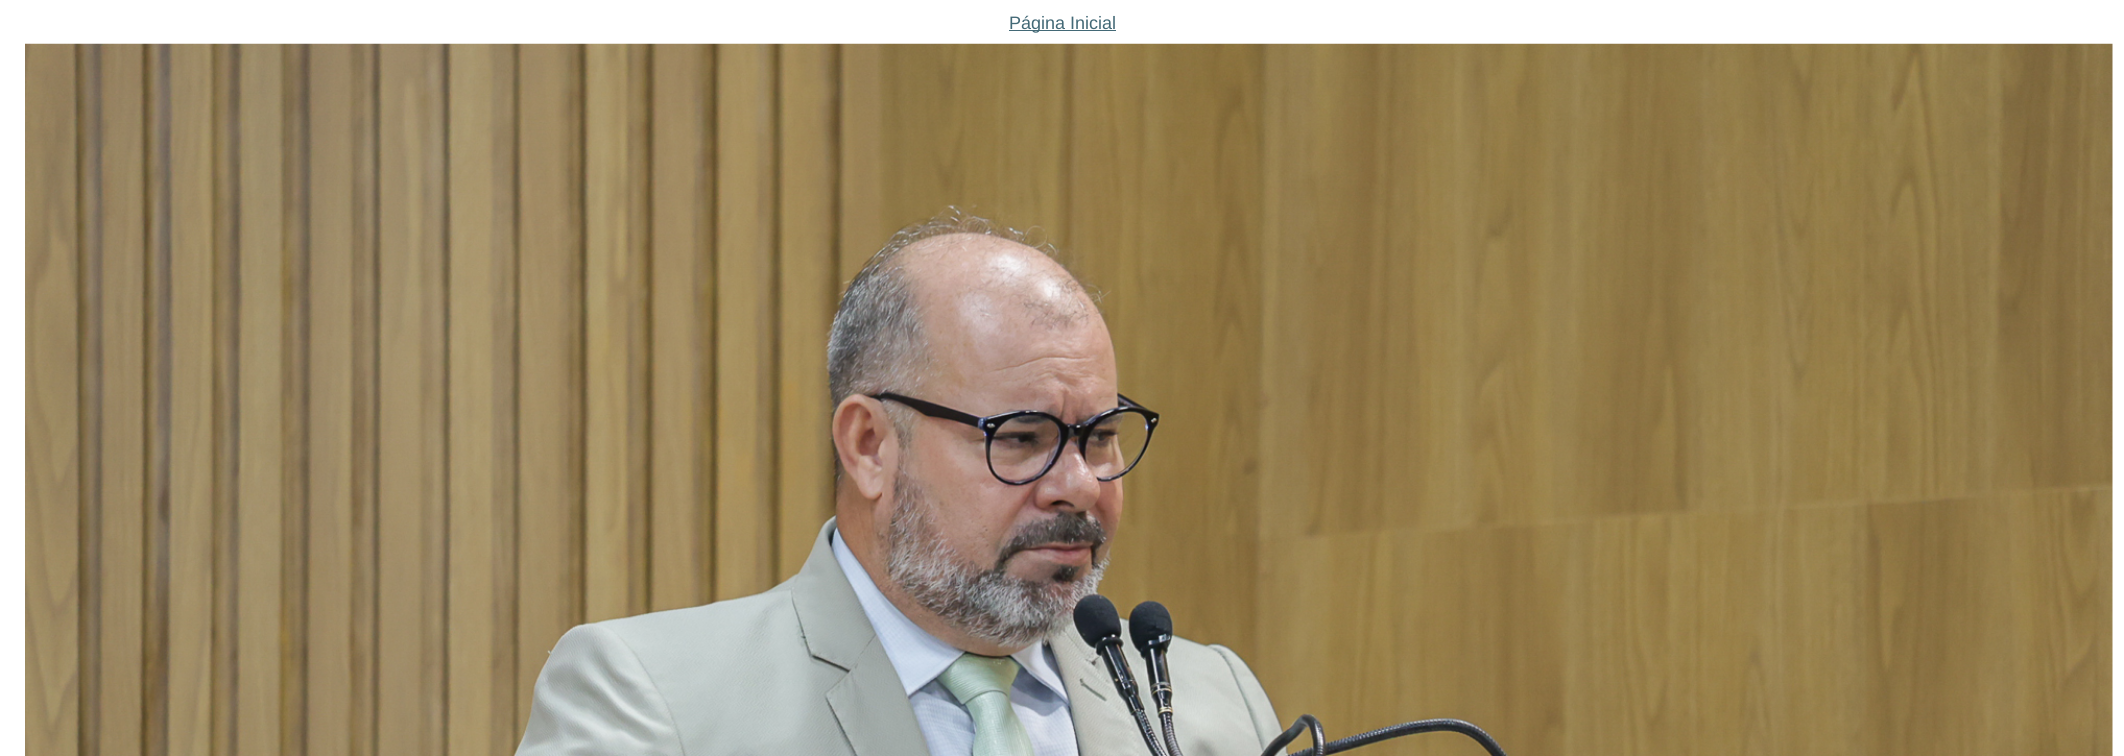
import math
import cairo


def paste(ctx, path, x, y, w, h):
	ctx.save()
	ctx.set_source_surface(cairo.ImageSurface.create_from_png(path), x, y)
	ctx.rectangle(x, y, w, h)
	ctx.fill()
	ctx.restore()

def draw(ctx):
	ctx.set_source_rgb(1, 1, 1)
	ctx.paint()
	ctx.set_source_rgb(0.263, 0.412, 0.463)
	ctx.rectangle(1009, 30, 107, 1)
	ctx.fill()
	ctx.select_font_face('Liberation Sans')
	ctx.set_font_size(18)
	ctx.move_to(1009, 29)
	ctx.show_text('Página Inicial')
	paste(ctx, 'media/1.png', 25, 43, 2088, 713)


surface = cairo.ImageSurface(cairo.FORMAT_RGB24, 2124, 756)
ctx = cairo.Context(surface)
options = cairo.FontOptions()
options.set_hint_metrics(cairo.HINT_METRICS_OFF)
options.set_hint_style(cairo.HINT_STYLE_NONE)
ctx.set_font_options(options)
ctx.set_miter_limit(4)
draw(ctx)
surface.write_to_png('image.png')
